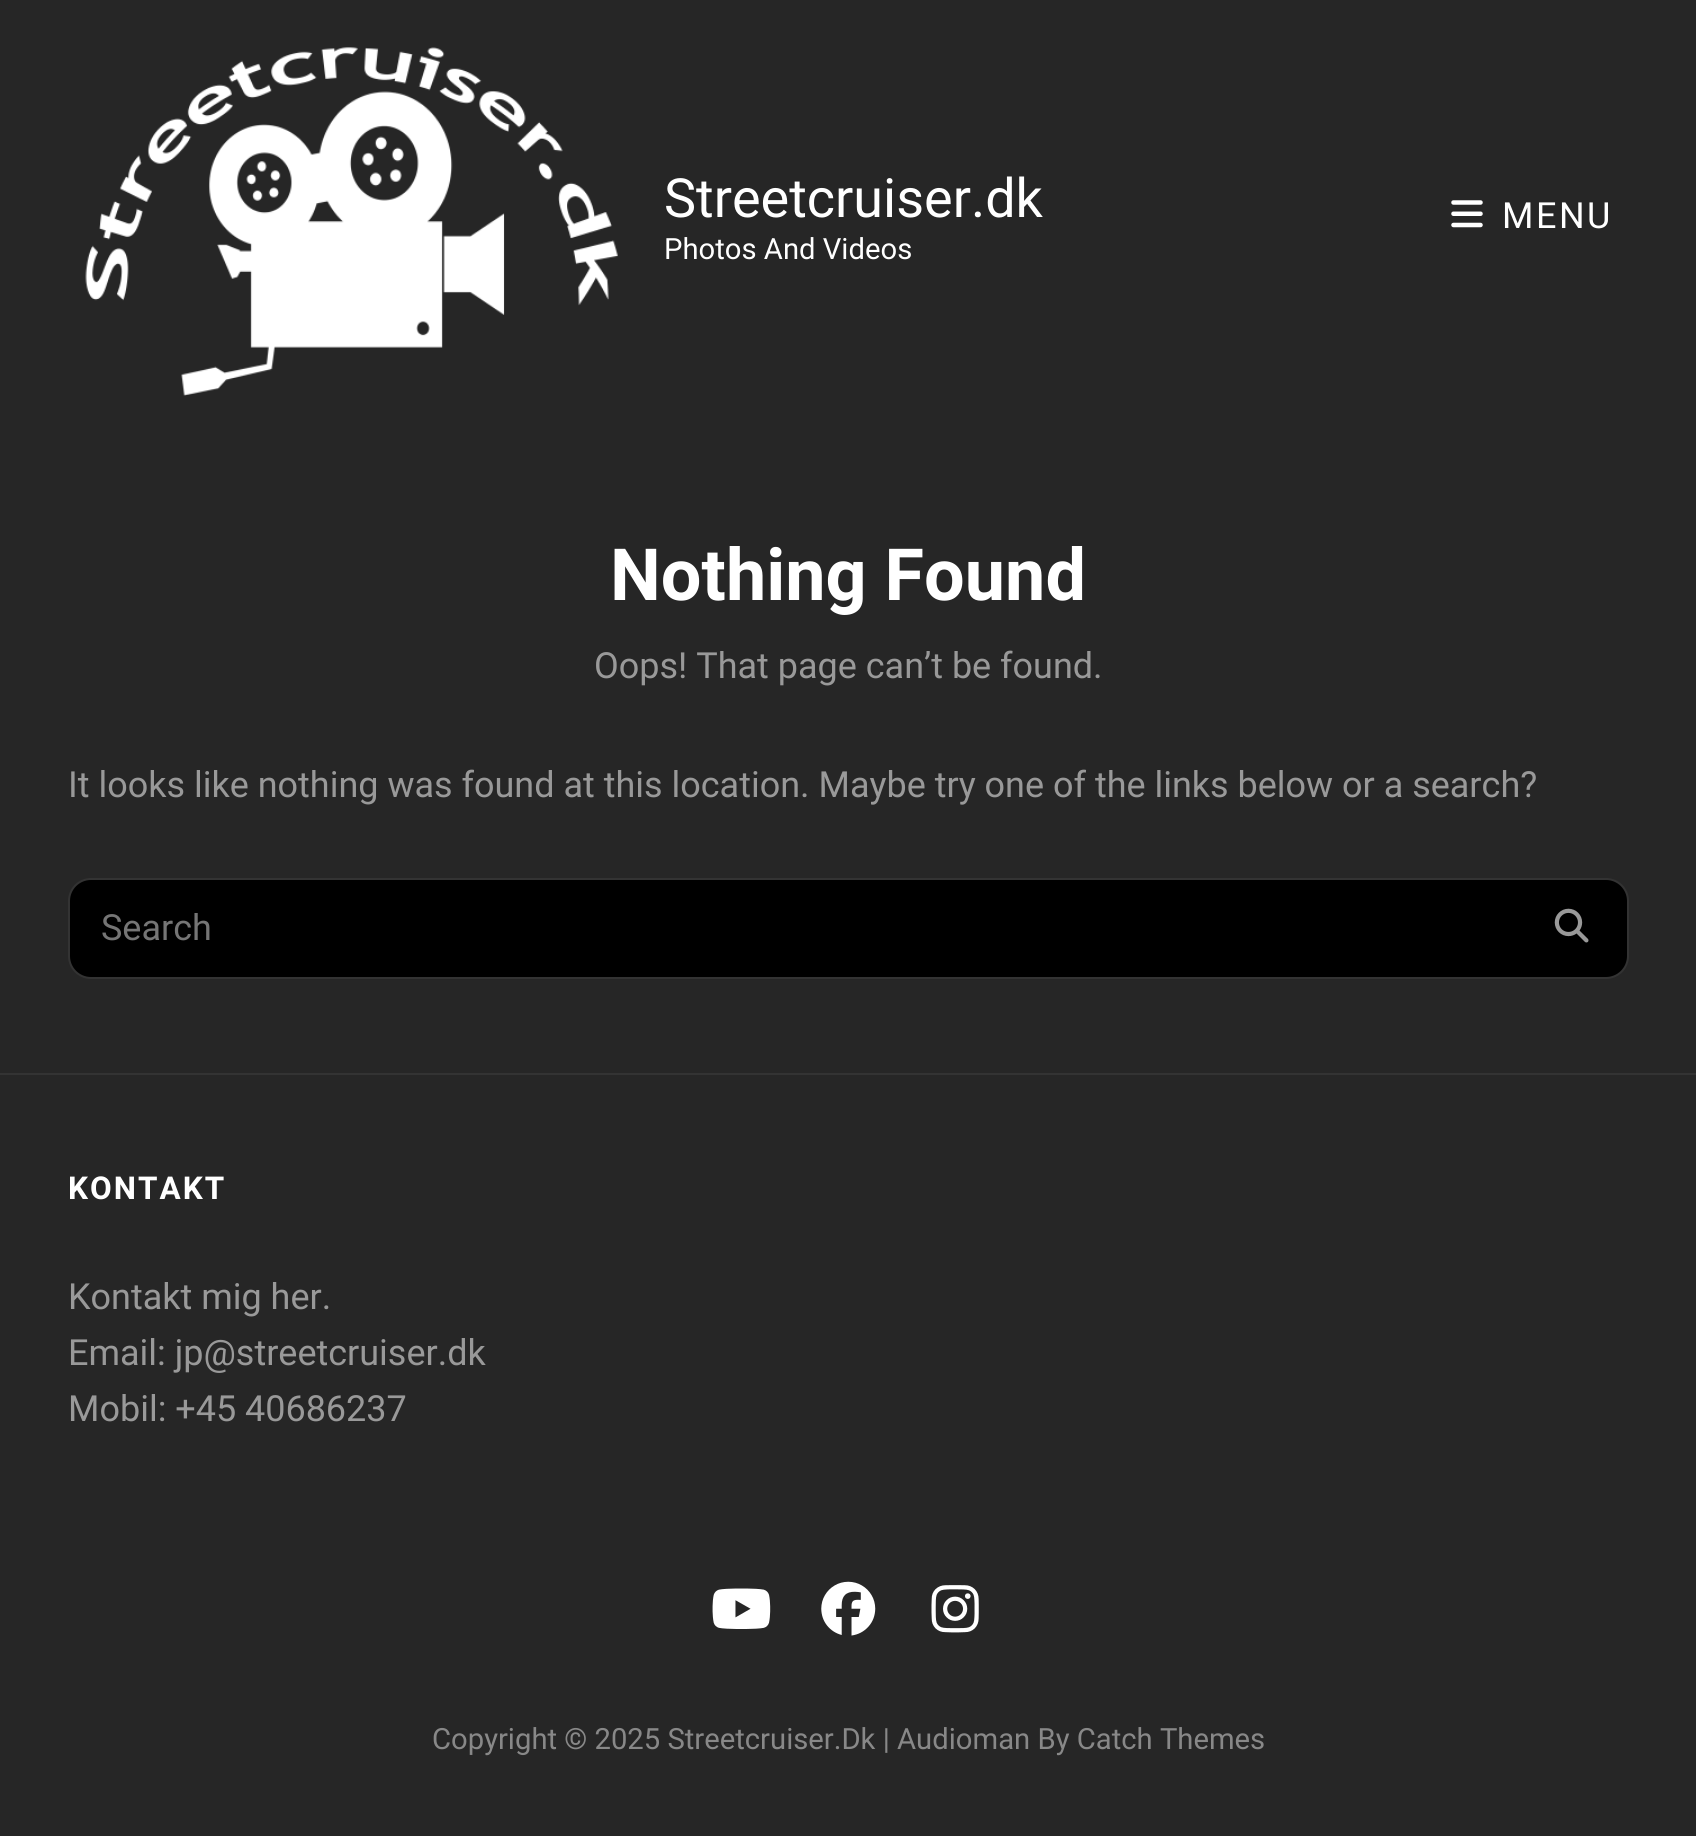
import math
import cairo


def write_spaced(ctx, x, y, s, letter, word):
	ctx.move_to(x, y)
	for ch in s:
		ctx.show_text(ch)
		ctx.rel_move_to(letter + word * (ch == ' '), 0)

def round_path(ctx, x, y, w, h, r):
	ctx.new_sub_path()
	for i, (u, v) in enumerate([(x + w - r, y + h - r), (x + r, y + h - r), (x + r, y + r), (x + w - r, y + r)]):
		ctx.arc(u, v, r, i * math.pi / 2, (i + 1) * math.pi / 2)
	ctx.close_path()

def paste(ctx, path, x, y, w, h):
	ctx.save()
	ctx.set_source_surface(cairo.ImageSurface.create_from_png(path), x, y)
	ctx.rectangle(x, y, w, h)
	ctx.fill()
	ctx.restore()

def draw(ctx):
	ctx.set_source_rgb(0.149, 0.149, 0.149)
	ctx.paint()
	paste(ctx, 'media/1.png', 85, 47, 533, 349)
	ctx.select_font_face('Roboto')
	ctx.set_font_size(54)
	ctx.set_source_rgb(1, 1, 1)
	ctx.move_to(664, 217)
	ctx.show_text('Streetcruiser.dk')
	ctx.set_font_size(29.25)
	ctx.move_to(664, 259)
	ctx.show_text('Photos And Videos')
	paste(ctx, 'media/2.png', 1451, 200, 32, 28)
	ctx.set_font_size(36)
	write_spaced(ctx, 1502, 228, 'MENU', 2.5, 0)
	ctx.set_source_rgb(0.2, 0.2, 0.2)
	ctx.rectangle(0, 1073, 1696, 2)
	ctx.fill()
	ctx.select_font_face('Roboto', cairo.FONT_SLANT_NORMAL, cairo.FONT_WEIGHT_BOLD)
	ctx.set_font_size(72)
	ctx.set_source_rgb(1, 1, 1)
	ctx.move_to(610, 600)
	ctx.show_text('Nothing Found')
	ctx.select_font_face('Roboto')
	ctx.set_font_size(36)
	ctx.set_source_rgb(0.6, 0.6, 0.6)
	ctx.move_to(594, 678)
	ctx.show_text('Oops! That page can’t be found.')
	ctx.move_to(68, 797)
	ctx.show_text('It looks like nothing was found at this location. Maybe try one of the links below or a search?')
	ctx.set_source_rgb(0, 0, 0)
	round_path(ctx, 69, 879, 1559, 99, 22)
	ctx.fill_preserve()
	ctx.set_source_rgb(0.2, 0.2, 0.2)
	ctx.stroke()
	ctx.set_source_rgb(0.459, 0.459, 0.459)
	ctx.move_to(101, 940)
	ctx.show_text('Search')
	paste(ctx, 'media/3.png', 1554, 908, 35, 35)
	ctx.select_font_face('Roboto', cairo.FONT_SLANT_NORMAL, cairo.FONT_WEIGHT_BOLD)
	ctx.set_font_size(31.5)
	ctx.set_source_rgb(1, 1, 1)
	write_spaced(ctx, 68, 1199, 'KONTAKT', 2, 0)
	ctx.select_font_face('Roboto')
	ctx.set_font_size(36)
	ctx.set_source_rgb(0.6, 0.6, 0.6)
	for x, y, s in [
		(68, 1309, 'Kontakt mig her.'),
		(68, 1365, 'Email: jp@streetcruiser.dk'),
		(68, 1421, 'Mobil: +45 40686237'),
	]:
		ctx.move_to(x, y)
		ctx.show_text(s)
	paste(ctx, 'media/4.png', 712, 1588, 59, 41)
	paste(ctx, 'media/5.png', 821, 1581, 55, 55)
	paste(ctx, 'media/6.png', 931, 1585, 48, 48)
	ctx.set_font_size(29.25)
	ctx.set_source_rgb(0.533, 0.533, 0.533)
	ctx.move_to(432, 1749)
	ctx.show_text('Copyright © 2025 Streetcruiser.Dk | Audioman By Catch Themes')


surface = cairo.ImageSurface(cairo.FORMAT_RGB24, 1696, 1836)
ctx = cairo.Context(surface)
options = cairo.FontOptions()
options.set_hint_metrics(cairo.HINT_METRICS_OFF)
options.set_hint_style(cairo.HINT_STYLE_NONE)
ctx.set_font_options(options)
ctx.set_miter_limit(4)
draw(ctx)
surface.write_to_png('image.png')
